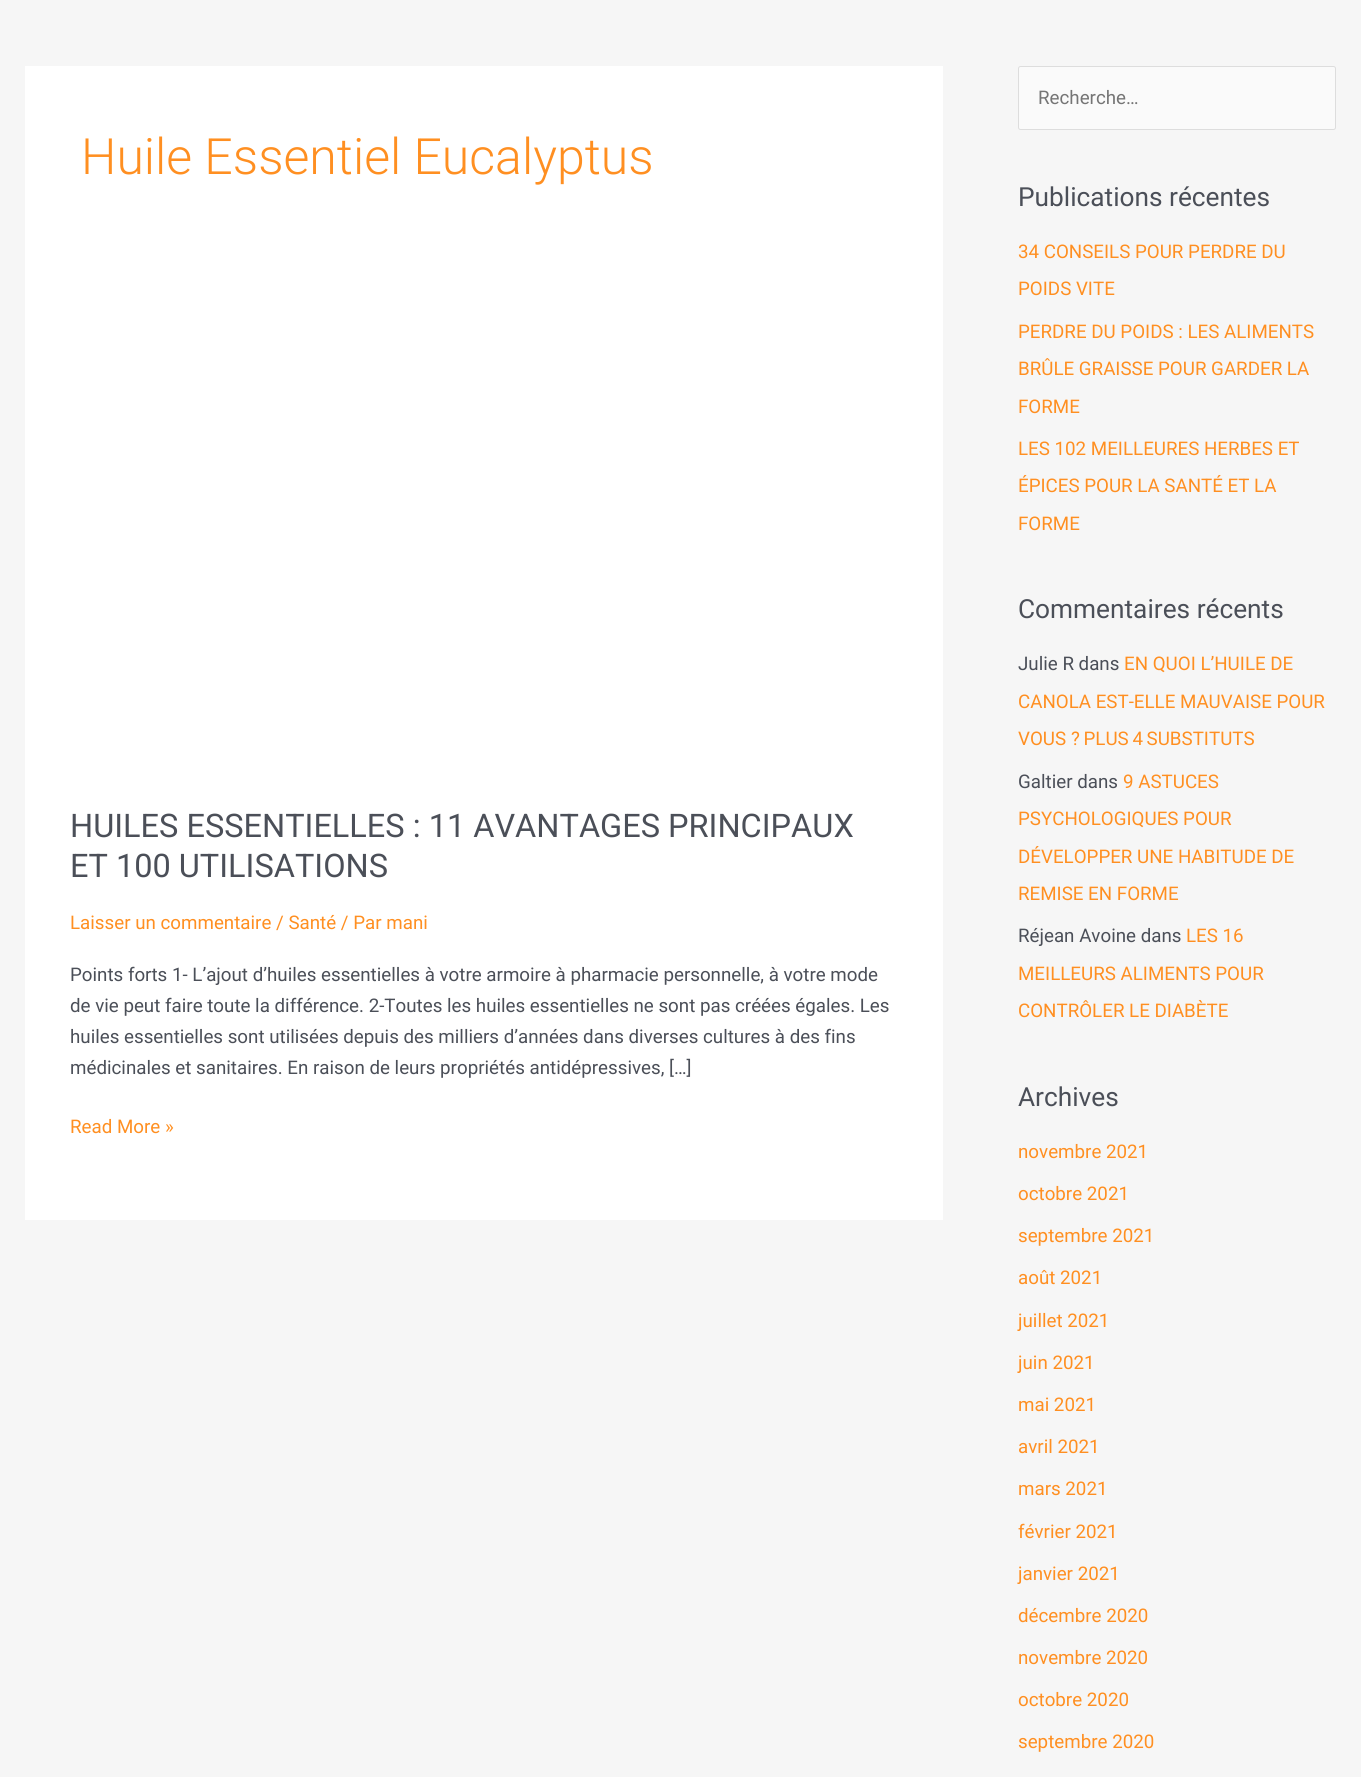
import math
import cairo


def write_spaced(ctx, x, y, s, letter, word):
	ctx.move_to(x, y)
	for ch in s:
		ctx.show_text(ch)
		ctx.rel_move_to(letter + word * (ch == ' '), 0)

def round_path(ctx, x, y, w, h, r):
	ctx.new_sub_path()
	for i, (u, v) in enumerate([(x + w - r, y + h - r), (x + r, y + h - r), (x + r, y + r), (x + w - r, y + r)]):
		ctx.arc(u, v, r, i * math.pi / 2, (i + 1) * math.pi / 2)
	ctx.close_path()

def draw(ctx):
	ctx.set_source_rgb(0.961, 0.961, 0.961)
	ctx.paint()
	ctx.set_source_rgb(1, 1, 1)
	ctx.rectangle(25, 66, 918, 1154)
	ctx.fill()
	ctx.select_font_face('Roboto Light')
	ctx.set_font_size(50)
	ctx.set_source_rgb(1, 0.561, 0.129)
	ctx.move_to(81, 174)
	ctx.show_text('Huile Essentiel Eucalyptus')
	ctx.select_font_face('Roboto')
	ctx.set_font_size(32.5)
	ctx.set_source_rgb(0.294, 0.31, 0.345)
	ctx.move_to(70, 837)
	ctx.show_text('HUILES ESSENTIELLES : 11 AVANTAGES PRINCIPAUX')
	ctx.move_to(70, 877)
	ctx.show_text('ET 100 UTILISATIONS')
	ctx.set_font_size(18.75)
	ctx.set_source_rgb(1, 0.561, 0.129)
	ctx.move_to(70, 929)
	ctx.show_text('Laisser un commentaire / Santé / Par mani')
	ctx.set_source_rgb(0.294, 0.31, 0.345)
	for x, y, s in [
		(70, 981, 'Points forts 1- L’ajout d’huiles essentielles à votre armoire à pharmacie personnelle, à votre mode'),
		(70, 1012, 'de vie peut faire toute la différence. 2-Toutes les huiles essentielles ne sont pas créées égales. Les'),
		(70, 1043, 'huiles essentielles sont utilisées depuis des milliers d’années dans diverses cultures à des fins'),
		(70, 1074, 'médicinales et sanitaires. En raison de leurs propriétés antidépressives, […]'),
	]:
		ctx.move_to(x, y)
		ctx.show_text(s)
	ctx.set_source_rgb(1, 0.561, 0.129)
	ctx.move_to(70, 1133)
	ctx.show_text('Read More »')
	ctx.set_source_rgb(0.98, 0.98, 0.98)
	round_path(ctx, 1018.5, 66.5, 317, 63, 2)
	ctx.fill_preserve()
	ctx.set_source_rgb(0.867, 0.867, 0.867)
	ctx.set_line_width(1)
	ctx.stroke()
	ctx.set_source_rgb(0.459, 0.459, 0.459)
	ctx.move_to(1038, 104)
	ctx.show_text('Recherche…')
	ctx.set_font_size(26.25)
	ctx.set_source_rgb(0.294, 0.31, 0.345)
	ctx.move_to(1018, 206)
	ctx.show_text('Publications récentes')
	ctx.set_font_size(18.75)
	ctx.set_source_rgb(1, 0.561, 0.129)
	for x, y, s in [
		(1018, 258, '34 CONSEILS POUR PERDRE DU'),
		(1018, 295, 'POIDS VITE'),
		(1018, 338, 'PERDRE DU POIDS : LES ALIMENTS'),
		(1018, 375, 'BRÛLE GRAISSE POUR GARDER LA'),
		(1018, 413, 'FORME'),
		(1018, 455, 'LES 102 MEILLEURES HERBES ET'),
		(1018, 492, 'ÉPICES POUR LA SANTÉ ET LA'),
		(1018, 530, 'FORME'),
	]:
		ctx.move_to(x, y)
		ctx.show_text(s)
	ctx.set_font_size(26.25)
	ctx.set_source_rgb(0.294, 0.31, 0.345)
	ctx.move_to(1018, 618)
	ctx.show_text('Commentaires récents')
	ctx.set_font_size(18.75)
	ctx.move_to(1018, 670)
	ctx.show_text('Julie R dans')
	ctx.set_source_rgb(1, 0.561, 0.129)
	for x, y, s in [
		(1124, 670, 'EN QUOI L’HUILE DE'),
		(1018, 708, 'CANOLA EST-ELLE MAUVAISE POUR'),
		(1018, 745, 'VOUS'),
	]:
		ctx.move_to(x, y)
		ctx.show_text(s)
	write_spaced(ctx, 1071, 745, '? PLUS 4 SUBSTITUTS', 0, -1)
	ctx.set_source_rgb(0.294, 0.31, 0.345)
	ctx.move_to(1018, 788)
	ctx.show_text('Galtier dans')
	ctx.set_source_rgb(1, 0.561, 0.129)
	for x, y, s in [
		(1123, 788, '9 ASTUCES'),
		(1018, 825, 'PSYCHOLOGIQUES POUR'),
		(1018, 863, 'DÉVELOPPER UNE HABITUDE DE'),
		(1018, 900, 'REMISE EN FORME'),
	]:
		ctx.move_to(x, y)
		ctx.show_text(s)
	ctx.set_source_rgb(0.294, 0.31, 0.345)
	ctx.move_to(1018, 942)
	ctx.show_text('Réjean Avoine dans')
	ctx.set_source_rgb(1, 0.561, 0.129)
	for x, y, s in [
		(1186, 942, 'LES 16'),
		(1018, 980, 'MEILLEURS ALIMENTS POUR'),
		(1018, 1017, 'CONTRÔLER LE DIABÈTE'),
	]:
		ctx.move_to(x, y)
		ctx.show_text(s)
	ctx.set_font_size(26.25)
	ctx.set_source_rgb(0.294, 0.31, 0.345)
	ctx.move_to(1018, 1106)
	ctx.show_text('Archives')
	ctx.set_font_size(18.75)
	ctx.set_source_rgb(1, 0.561, 0.129)
	for x, y, s in [
		(1018, 1158, 'novembre 2021'),
		(1018, 1200, 'octobre 2021'),
		(1018, 1242, 'septembre 2021'),
		(1018, 1284, 'août 2021'),
		(1018, 1327, 'juillet 2021'),
		(1018, 1369, 'juin 2021'),
		(1018, 1411, 'mai 2021'),
		(1018, 1453, 'avril 2021'),
		(1018, 1495, 'mars 2021'),
		(1018, 1538, 'février 2021'),
		(1018, 1580, 'janvier 2021'),
		(1018, 1622, 'décembre 2020'),
		(1018, 1664, 'novembre 2020'),
		(1018, 1706, 'octobre 2020'),
		(1018, 1748, 'septembre 2020'),
	]:
		ctx.move_to(x, y)
		ctx.show_text(s)


surface = cairo.ImageSurface(cairo.FORMAT_RGB24, 1361, 1777)
ctx = cairo.Context(surface)
options = cairo.FontOptions()
options.set_hint_metrics(cairo.HINT_METRICS_OFF)
options.set_hint_style(cairo.HINT_STYLE_NONE)
ctx.set_font_options(options)
ctx.set_miter_limit(4)
draw(ctx)
surface.write_to_png('image.png')
